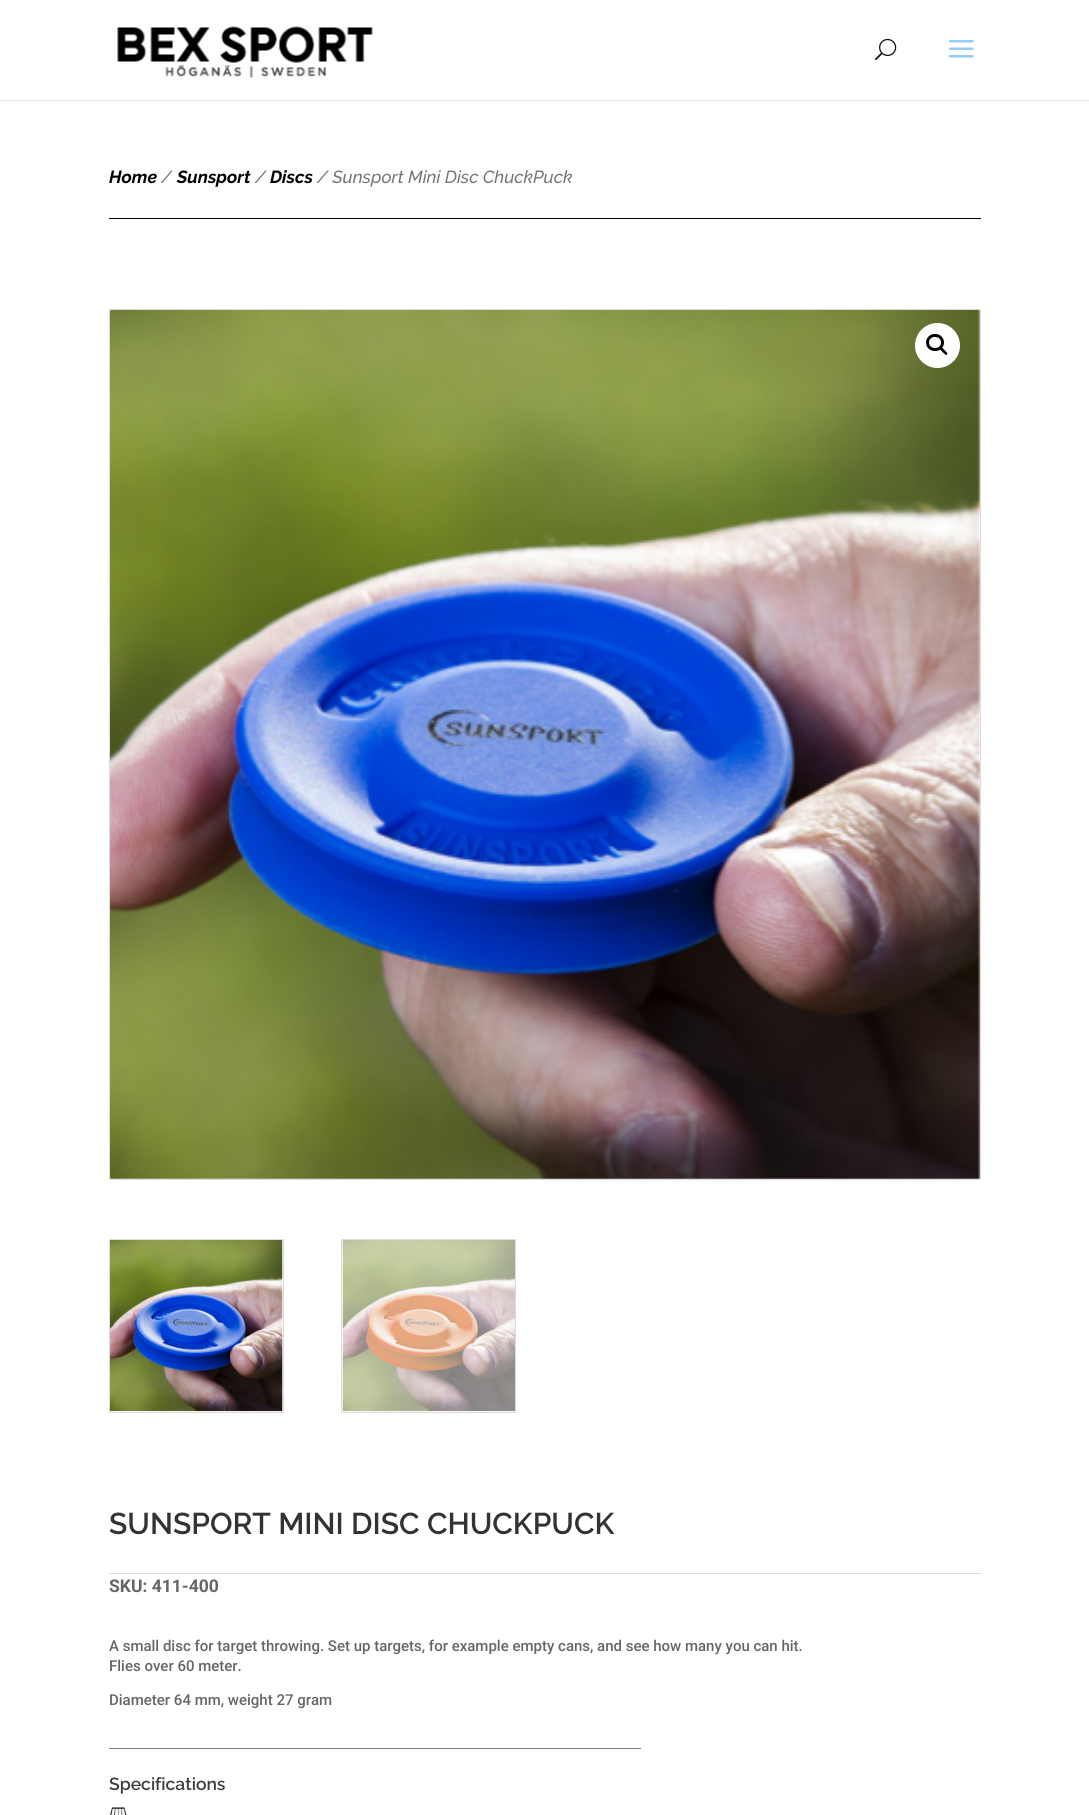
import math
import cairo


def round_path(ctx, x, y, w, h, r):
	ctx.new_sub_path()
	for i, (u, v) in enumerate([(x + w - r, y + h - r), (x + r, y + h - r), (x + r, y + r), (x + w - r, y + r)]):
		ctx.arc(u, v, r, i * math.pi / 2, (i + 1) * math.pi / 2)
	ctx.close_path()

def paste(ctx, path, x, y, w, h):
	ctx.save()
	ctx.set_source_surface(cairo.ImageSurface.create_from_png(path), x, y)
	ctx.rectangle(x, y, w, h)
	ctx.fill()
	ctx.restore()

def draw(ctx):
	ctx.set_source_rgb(1, 1, 1)
	ctx.paint()
	ctx.set_source_rgb(0.902, 0.902, 0.902)
	ctx.rectangle(0, 100, 1089, 1)
	ctx.fill()
	paste(ctx, 'media/1.png', 117, 26, 256, 52)
	paste(ctx, 'media/2.png', 875, 38, 22, 23)
	paste(ctx, 'media/3.png', 948, 40, 26, 18)
	ctx.select_font_face('Raleway', cairo.FONT_SLANT_ITALIC, cairo.FONT_WEIGHT_BOLD)
	ctx.set_font_size(17.5)
	ctx.set_source_rgb(0, 0, 0)
	ctx.move_to(109, 183)
	ctx.show_text('Home')
	ctx.select_font_face('Raleway Medium', cairo.FONT_SLANT_ITALIC)
	ctx.set_source_rgb(0.463, 0.463, 0.463)
	ctx.move_to(161, 183)
	ctx.show_text('/')
	ctx.select_font_face('Raleway', cairo.FONT_SLANT_ITALIC, cairo.FONT_WEIGHT_BOLD)
	ctx.set_source_rgb(0, 0, 0)
	ctx.move_to(177, 183)
	ctx.show_text('Sunsport')
	ctx.select_font_face('Raleway Medium', cairo.FONT_SLANT_ITALIC)
	ctx.set_source_rgb(0.463, 0.463, 0.463)
	ctx.move_to(255, 183)
	ctx.show_text('/')
	ctx.select_font_face('Raleway', cairo.FONT_SLANT_ITALIC, cairo.FONT_WEIGHT_BOLD)
	ctx.set_source_rgb(0, 0, 0)
	ctx.move_to(270, 183)
	ctx.show_text('Discs')
	ctx.select_font_face('Raleway Medium', cairo.FONT_SLANT_ITALIC)
	ctx.set_source_rgb(0.463, 0.463, 0.463)
	ctx.move_to(317, 183)
	ctx.show_text('/ Sunsport Mini Disc ChuckPuck')
	ctx.set_source_rgb(0, 0, 0)
	ctx.rectangle(109, 218, 872, 1)
	ctx.fill()
	round_path(ctx, 109.5, 309.5, 871, 870, 0.5)
	ctx.set_source_rgb(0.859, 0.859, 0.859)
	ctx.set_line_width(1)
	ctx.stroke()
	paste(ctx, 'media/4.png', 110, 310, 870, 869)
	ctx.set_source_rgb(1, 1, 1)
	ctx.arc(937.5, 345.5, 22.5, 0, 2 * math.pi)
	ctx.fill()
	round_path(ctx, 927.5, 335.5, 15, 14, 7)
	ctx.set_source_rgb(0, 0, 0)
	ctx.set_line_width(3)
	ctx.stroke()
	ctx.new_path()
	ctx.move_to(940, 347.5)
	ctx.curve_to(941.5, 346, 943.5, 349.5, 944.5, 350)
	ctx.curve_to(945, 351, 948.5, 353, 947, 354.5)
	ctx.curve_to(945.5, 356, 943.5, 352.5, 942.5, 352)
	ctx.curve_to(942, 351, 938.5, 349, 940, 347.5)
	ctx.close_path()
	ctx.fill()
	round_path(ctx, 109.5, 1239.5, 174, 173, 0.5)
	ctx.set_source_rgb(0.859, 0.859, 0.859)
	ctx.set_line_width(1)
	ctx.stroke()
	paste(ctx, 'media/5.png', 110, 1240, 173, 172)
	round_path(ctx, 341.5, 1239.5, 174, 173, 0.5)
	ctx.stroke()
	paste(ctx, 'media/6.png', 342, 1240, 173, 172)
	ctx.select_font_face('Raleway SemiBold')
	ctx.set_font_size(30)
	ctx.set_source_rgb(0.2, 0.2, 0.2)
	ctx.move_to(109, 1534)
	ctx.show_text('SUNSPORT MINI DISC CHUCKPUCK')
	ctx.set_source_rgb(0.855, 0.855, 0.855)
	ctx.rectangle(109, 1573, 872, 1)
	ctx.fill()
	ctx.select_font_face('Roboto', cairo.FONT_SLANT_NORMAL, cairo.FONT_WEIGHT_BOLD)
	ctx.set_font_size(17.5)
	ctx.set_source_rgb(0.4, 0.4, 0.4)
	ctx.move_to(109, 1592)
	ctx.show_text('SKU: 411-400')
	ctx.select_font_face('Roboto Medium')
	ctx.set_font_size(15)
	for x, y, s in [
		(109, 1651, 'A small disc for target throwing. Set up targets, for example empty cans, and see how many you can hit.'),
		(109, 1671, 'Flies over 60 meter.'),
		(109, 1705, 'Diameter 64 mm, weight 27 gram'),
	]:
		ctx.move_to(x, y)
		ctx.show_text(s)
	ctx.set_source_rgb(0.502, 0.502, 0.502)
	ctx.rectangle(109, 1748, 532, 1)
	ctx.fill()
	ctx.select_font_face('Raleway SemiBold')
	ctx.set_font_size(17.5)
	ctx.set_source_rgb(0.247, 0.247, 0.247)
	ctx.move_to(109, 1790)
	ctx.show_text('Specifications')
	paste(ctx, 'media/7.png', 110, 1807, 17, 8)


surface = cairo.ImageSurface(cairo.FORMAT_RGB24, 1089, 1815)
ctx = cairo.Context(surface)
options = cairo.FontOptions()
options.set_hint_metrics(cairo.HINT_METRICS_OFF)
options.set_hint_style(cairo.HINT_STYLE_NONE)
ctx.set_font_options(options)
ctx.set_miter_limit(4)
draw(ctx)
surface.write_to_png('image.png')
